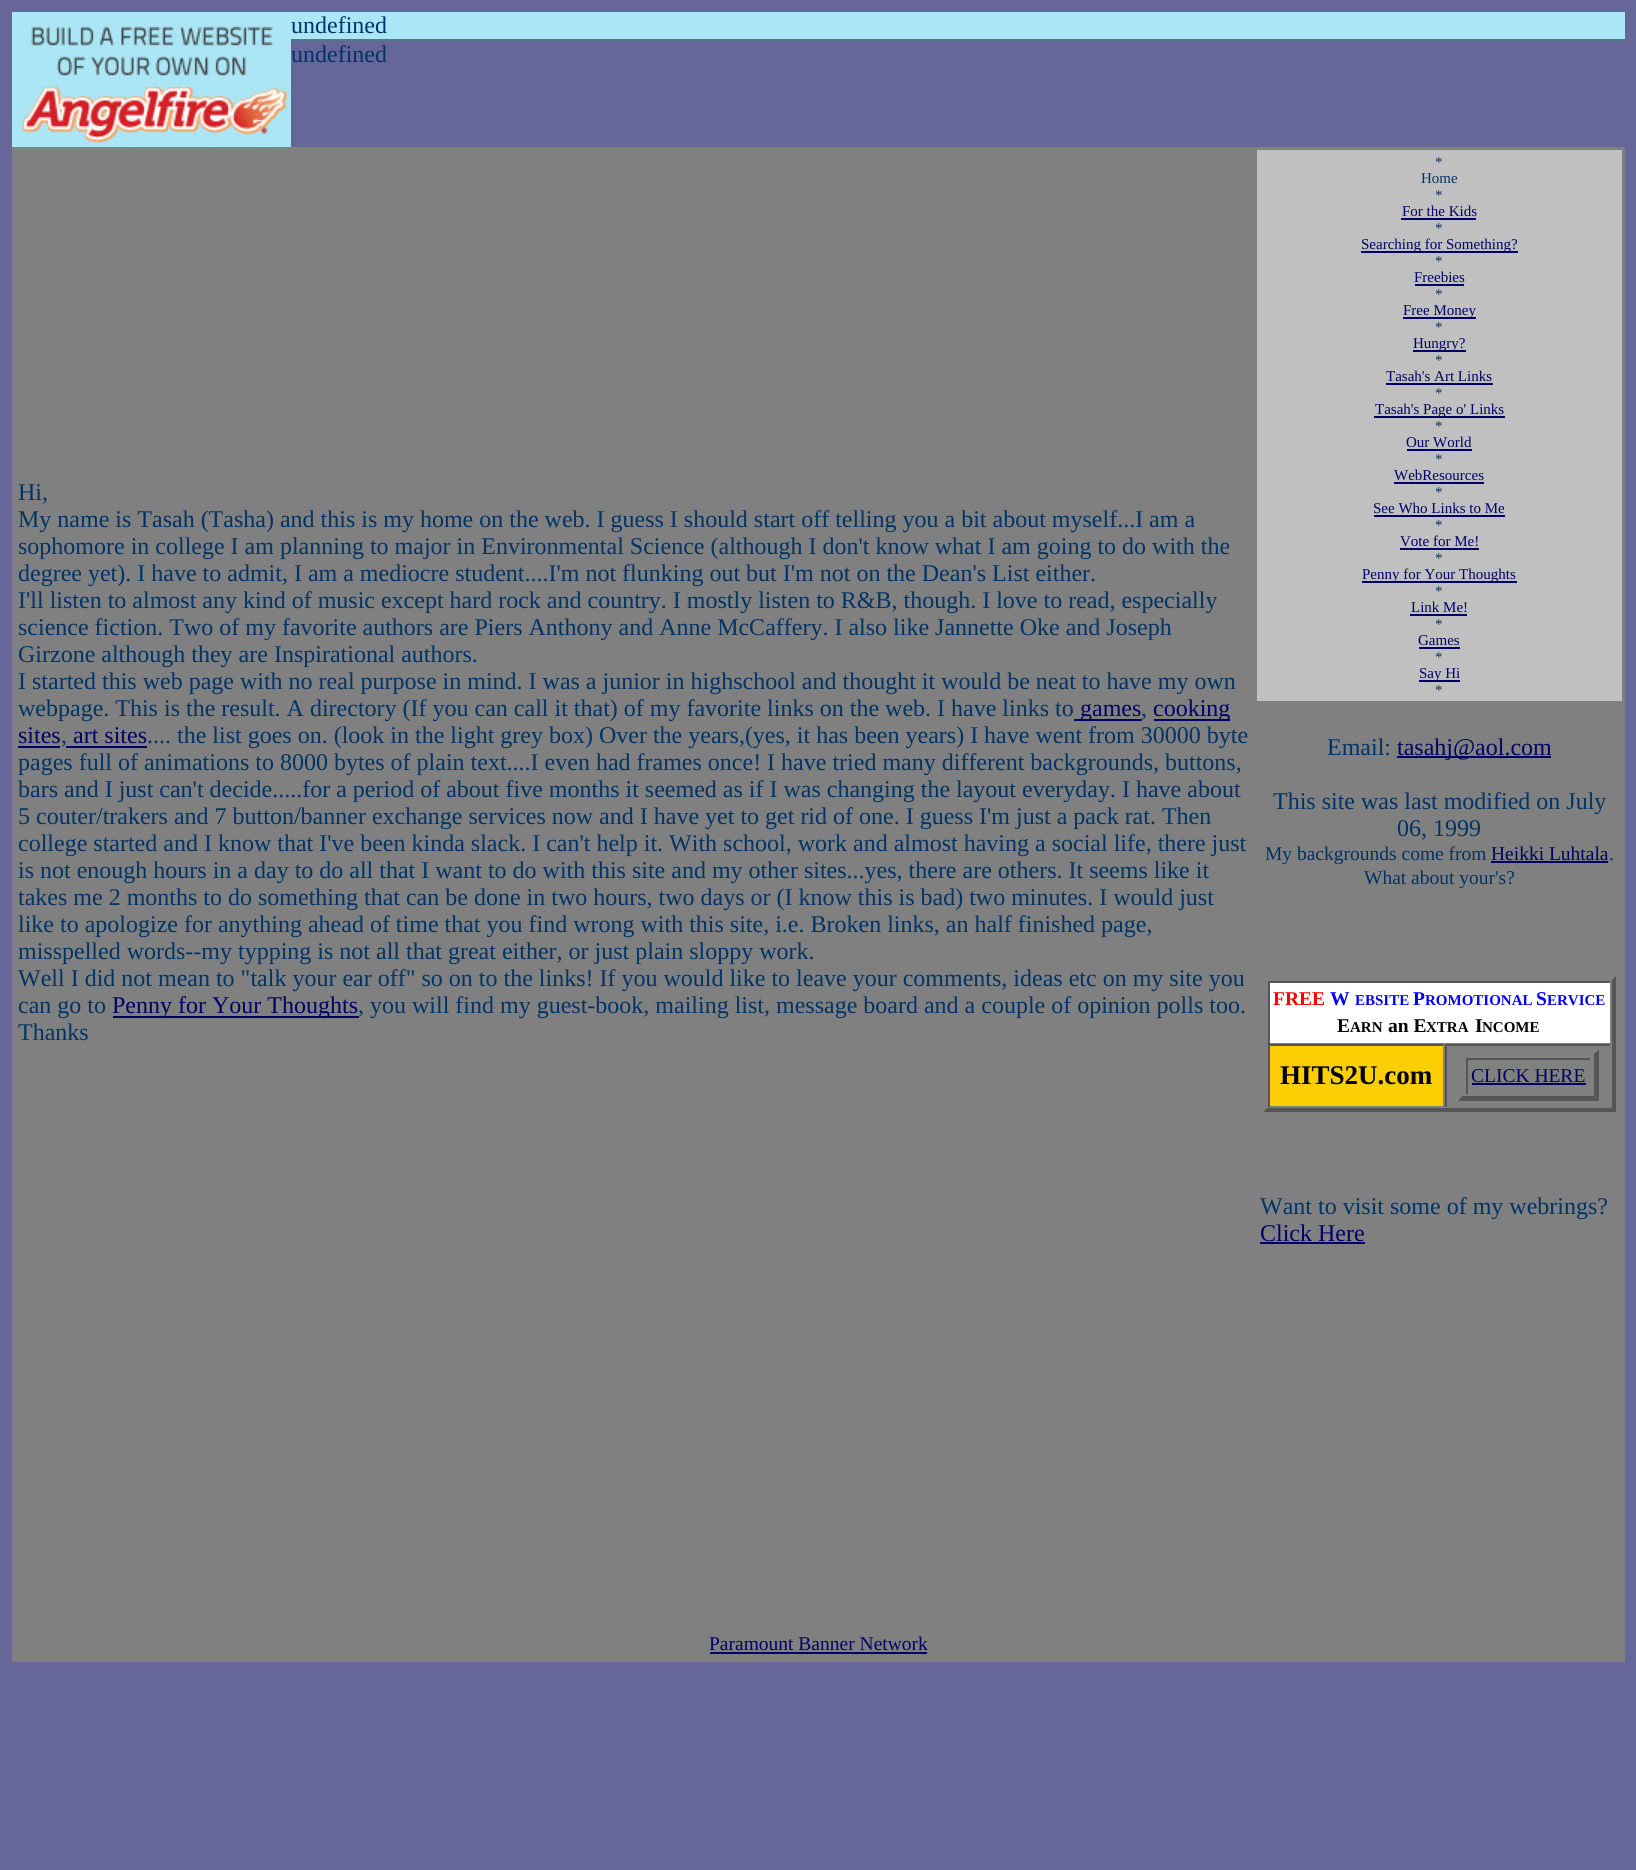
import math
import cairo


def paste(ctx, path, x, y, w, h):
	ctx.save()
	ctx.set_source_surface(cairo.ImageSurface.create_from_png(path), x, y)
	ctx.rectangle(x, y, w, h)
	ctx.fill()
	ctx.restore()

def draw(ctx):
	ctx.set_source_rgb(0.4, 0.4, 0.6)
	ctx.paint()
	ctx.set_source_rgb(0.671, 0.902, 0.965)
	ctx.rectangle(12, 12, 1613, 27)
	ctx.fill()
	ctx.set_source_rgb(0.314, 0.478, 0.529)
	ctx.rectangle(291, 39, 1334, 2)
	ctx.fill()
	paste(ctx, 'media/1.png', 12, 24, 279, 123)
	ctx.select_font_face('Liberation Serif')
	ctx.set_font_size(24)
	ctx.set_source_rgb(0, 0.2, 0.4)
	ctx.move_to(291, 33)
	ctx.show_text('undefined')
	ctx.move_to(291, 62)
	ctx.show_text('undefined')
	ctx.set_source_rgb(0.502, 0.502, 0.502)
	ctx.rectangle(12, 147, 1613, 1515)
	ctx.fill()
	ctx.set_source_rgb(0.753, 0.753, 0.753)
	ctx.rectangle(1257, 150, 365, 551)
	ctx.fill()
	ctx.set_font_size(15)
	ctx.set_source_rgb(0, 0.2, 0.4)
	for x, y, s in [
		(1435, 167, '*'),
		(1421, 183, 'Home'),
		(1435, 200, '*'),
	]:
		ctx.move_to(x, y)
		ctx.show_text(s)
	ctx.set_source_rgb(0, 0, 0.4)
	ctx.move_to(1402, 216)
	ctx.show_text('For the Kids')
	ctx.rectangle(1401, 218, 75, 2)
	ctx.fill()
	ctx.set_source_rgb(0, 0.2, 0.4)
	ctx.move_to(1435, 233)
	ctx.show_text('*')
	ctx.set_source_rgb(0, 0, 0.4)
	ctx.rectangle(1361, 251, 157, 2)
	ctx.fill()
	ctx.move_to(1361, 249)
	ctx.show_text('Searching for Something?')
	ctx.set_source_rgb(0, 0.2, 0.4)
	ctx.move_to(1435, 266)
	ctx.show_text('*')
	ctx.set_source_rgb(0, 0, 0.4)
	ctx.move_to(1414, 282)
	ctx.show_text('Freebies')
	ctx.rectangle(1415, 284, 49, 2)
	ctx.fill()
	ctx.set_source_rgb(0, 0.2, 0.4)
	ctx.move_to(1435, 299)
	ctx.show_text('*')
	ctx.set_source_rgb(0, 0, 0.4)
	ctx.rectangle(1403, 317, 73, 2)
	ctx.fill()
	ctx.move_to(1403, 315)
	ctx.show_text('Free Money')
	ctx.set_source_rgb(0, 0.2, 0.4)
	ctx.move_to(1435, 332)
	ctx.show_text('*')
	ctx.set_source_rgb(0, 0, 0.4)
	ctx.rectangle(1413, 350, 53, 2)
	ctx.fill()
	ctx.move_to(1413, 348)
	ctx.show_text('Hungry?')
	ctx.set_source_rgb(0, 0.2, 0.4)
	ctx.move_to(1435, 365)
	ctx.show_text('*')
	ctx.set_source_rgb(0, 0, 0.4)
	ctx.move_to(1386, 381)
	ctx.show_text('Tasah\'s Art Links')
	ctx.rectangle(1386, 383, 107, 2)
	ctx.fill()
	ctx.set_source_rgb(0, 0.2, 0.4)
	ctx.move_to(1435, 398)
	ctx.show_text('*')
	ctx.set_source_rgb(0, 0, 0.4)
	ctx.rectangle(1374, 416, 131, 2)
	ctx.fill()
	ctx.move_to(1375, 414)
	ctx.show_text('Tasah\'s Page o\' Links')
	ctx.set_source_rgb(0, 0.2, 0.4)
	ctx.move_to(1435, 431)
	ctx.show_text('*')
	ctx.set_source_rgb(0, 0, 0.4)
	ctx.move_to(1406, 447)
	ctx.show_text('Our World')
	ctx.rectangle(1407, 449, 65, 2)
	ctx.fill()
	ctx.set_source_rgb(0, 0.2, 0.4)
	ctx.move_to(1435, 464)
	ctx.show_text('*')
	ctx.set_source_rgb(0, 0, 0.4)
	ctx.move_to(1394, 480)
	ctx.show_text('WebResources')
	ctx.rectangle(1394, 482, 90, 2)
	ctx.fill()
	ctx.set_source_rgb(0, 0.2, 0.4)
	ctx.move_to(1435, 497)
	ctx.show_text('*')
	ctx.set_source_rgb(0, 0, 0.4)
	ctx.move_to(1373, 513)
	ctx.show_text('See Who Links to Me')
	ctx.rectangle(1374, 515, 131, 2)
	ctx.fill()
	ctx.set_source_rgb(0, 0.2, 0.4)
	ctx.move_to(1435, 530)
	ctx.show_text('*')
	ctx.set_source_rgb(0, 0, 0.4)
	ctx.move_to(1400, 546)
	ctx.show_text('Vote for Me!')
	ctx.rectangle(1400, 548, 79, 2)
	ctx.fill()
	ctx.set_source_rgb(0, 0.2, 0.4)
	ctx.move_to(1435, 563)
	ctx.show_text('*')
	ctx.set_source_rgb(0, 0, 0.4)
	ctx.rectangle(1362, 581, 155, 2)
	ctx.fill()
	ctx.move_to(1362, 579)
	ctx.show_text('Penny for Your Thoughts')
	ctx.set_source_rgb(0, 0.2, 0.4)
	ctx.move_to(1435, 596)
	ctx.show_text('*')
	ctx.set_source_rgb(0, 0, 0.4)
	ctx.move_to(1411, 612)
	ctx.show_text('Link Me!')
	ctx.rectangle(1410, 614, 57, 2)
	ctx.fill()
	ctx.set_source_rgb(0, 0.2, 0.4)
	ctx.move_to(1435, 629)
	ctx.show_text('*')
	ctx.set_source_rgb(0, 0, 0.4)
	ctx.move_to(1418, 645)
	ctx.show_text('Games')
	ctx.rectangle(1419, 647, 41, 2)
	ctx.fill()
	ctx.set_source_rgb(0, 0.2, 0.4)
	ctx.move_to(1435, 662)
	ctx.show_text('*')
	ctx.set_source_rgb(0, 0, 0.4)
	ctx.rectangle(1419, 680, 41, 2)
	ctx.fill()
	ctx.move_to(1419, 678)
	ctx.show_text('Say Hi')
	ctx.set_source_rgb(0, 0.2, 0.4)
	ctx.move_to(1435, 695)
	ctx.show_text('*')
	ctx.set_font_size(24)
	for x, y, s in [
		(18, 500, 'Hi,'),
		(18, 527, 'My name is Tasah (Tasha) and this is my home on the web. I guess I should start off telling you a bit about myself...I am a'),
		(18, 554, 'sophomore in college I am planning to major in Environmental Science (although I don\'t know what I am going to do with the'),
		(18, 581, 'degree yet). I have to admit, I am a mediocre student....I\'m not flunking out but I\'m not on the Dean\'s List either.'),
		(18, 608, 'I\'ll listen to almost any kind of music except hard rock and country. I mostly listen to R&B, though. I love to read, especially'),
		(18, 635, 'science fiction. Two of my favorite authors are Piers Anthony and Anne McCaffery. I also like Jannette Oke and Joseph'),
		(18, 662, 'Girzone although they are Inspirational authors.'),
		(18, 689, 'I started this web page with no real purpose in mind. I was a junior in highschool and thought it would be neat to have my own'),
		(18, 716, 'webpage. This is the result. A directory (If you can call it that) of my favorite links on the web. I have links to'),
	]:
		ctx.move_to(x, y)
		ctx.show_text(s)
	ctx.set_source_rgb(0, 0, 0.4)
	ctx.rectangle(1074, 719, 68, 2)
	ctx.fill()
	ctx.move_to(1080, 716)
	ctx.show_text('games')
	ctx.set_source_rgb(0, 0.2, 0.4)
	ctx.move_to(1141, 716)
	ctx.show_text(',')
	ctx.set_source_rgb(0, 0, 0.4)
	ctx.rectangle(1154, 719, 76, 2)
	ctx.fill()
	ctx.move_to(1153, 716)
	ctx.show_text('cooking')
	ctx.move_to(18, 743)
	ctx.show_text('sites')
	ctx.rectangle(18, 746, 42, 2)
	ctx.fill()
	ctx.set_source_rgb(0, 0.2, 0.4)
	ctx.move_to(61, 743)
	ctx.show_text(',')
	ctx.set_source_rgb(0, 0, 0.4)
	ctx.move_to(73, 743)
	ctx.show_text('art sites')
	ctx.rectangle(66, 746, 81, 2)
	ctx.fill()
	ctx.set_source_rgb(0, 0.2, 0.4)
	for x, y, s in [
		(147, 743, '.... the list goes on. (look in the light grey box) Over the years,(yes, it has been years) I have went from 30000 byte'),
		(18, 770, 'pages full of animations to 8000 bytes of plain text....I even had frames once! I have tried many different backgrounds, buttons,'),
		(18, 797, 'bars and I just can\'t decide.....for a period of about five months it seemed as if I was changing the layout everyday. I have about'),
		(18, 824, '5 couter/trakers and 7 button/banner exchange services now and I have yet to get rid of one. I guess I\'m just a pack rat. Then'),
		(18, 851, 'college started and I know that I\'ve been kinda slack. I can\'t help it. With school, work and almost having a social life, there just'),
		(18, 878, 'is not enough hours in a day to do all that I want to do with this site and my other sites...yes, there are others. It seems like it'),
		(18, 905, 'takes me 2 months to do something that can be done in two hours, two days or (I know this is bad) two minutes. I would just'),
		(18, 932, 'like to apologize for anything ahead of time that you find wrong with this site, i.e. Broken links, an half finished page,'),
		(18, 959, 'misspelled words--my typping is not all that great either, or just plain sloppy work.'),
		(18, 986, 'Well I did not mean to "talk your ear off" so on to the links! If you would like to leave your comments, ideas etc on my site you'),
		(18, 1013, 'can go to'),
	]:
		ctx.move_to(x, y)
		ctx.show_text(s)
	ctx.set_source_rgb(0, 0, 0.4)
	ctx.rectangle(113, 1016, 246, 2)
	ctx.fill()
	ctx.move_to(112, 1013)
	ctx.show_text('Penny for Your Thoughts')
	ctx.set_source_rgb(0, 0.2, 0.4)
	for x, y, s in [
		(358, 1013, ', you will find my guest-book, mailing list, message board and a couple of opinion polls too.'),
		(18, 1040, 'Thanks'),
		(1327, 755, 'Email:'),
	]:
		ctx.move_to(x, y)
		ctx.show_text(s)
	ctx.set_source_rgb(0, 0, 0.4)
	ctx.rectangle(1397, 756, 154, 2)
	ctx.fill()
	ctx.move_to(1397, 755)
	ctx.show_text('tasahj@aol.com')
	ctx.set_source_rgb(0, 0.2, 0.4)
	ctx.move_to(1273, 809)
	ctx.show_text('This site was last modified on July')
	ctx.move_to(1397, 836)
	ctx.show_text('06, 1999')
	ctx.set_font_size(19.5)
	ctx.move_to(1265, 860)
	ctx.show_text('My backgrounds come from')
	ctx.set_source_rgb(0, 0, 0.4)
	ctx.move_to(1491, 860)
	ctx.show_text('Heikki Luhtala')
	ctx.set_source_rgb(0, 0.2, 0.4)
	ctx.move_to(1609, 860)
	ctx.show_text('.')
	ctx.set_source_rgb(0, 0, 0.4)
	ctx.rectangle(1491, 861, 117, 2)
	ctx.fill()
	ctx.set_source_rgb(0, 0.2, 0.4)
	ctx.move_to(1364, 884)
	ctx.show_text('What about your\'s?')
	ctx.set_source_rgb(0.333, 0.333, 0.333)
	ctx.new_path()
	ctx.move_to(1616, 976)
	ctx.line_to(1616, 1112)
	ctx.line_to(1611, 1107)
	ctx.line_to(1611, 981)
	ctx.close_path()
	ctx.fill()
	ctx.new_path()
	ctx.move_to(1616, 1112)
	ctx.line_to(1263, 1112)
	ctx.line_to(1268, 1107)
	ctx.line_to(1611, 1107)
	ctx.close_path()
	ctx.fill()
	ctx.set_source_rgb(0.502, 0.502, 0.502)
	ctx.new_path()
	ctx.move_to(1263, 1112)
	ctx.line_to(1263, 976)
	ctx.line_to(1268, 981)
	ctx.line_to(1268, 1107)
	ctx.close_path()
	ctx.fill()
	ctx.set_source_rgb(1, 1, 1)
	ctx.rectangle(1270, 983, 340, 60)
	ctx.fill()
	ctx.set_source_rgb(0.333, 0.333, 0.333)
	ctx.rectangle(1268, 981, 343, 2)
	ctx.fill()
	ctx.set_source_rgb(0.502, 0.502, 0.502)
	ctx.rectangle(1610, 981, 2, 63)
	ctx.fill()
	ctx.set_source_rgb(0.333, 0.333, 0.333)
	ctx.rectangle(1268, 981, 2, 63)
	ctx.fill()
	ctx.select_font_face('Liberation Serif', cairo.FONT_SLANT_NORMAL, cairo.FONT_WEIGHT_BOLD)
	ctx.set_source_rgb(1, 0, 0)
	ctx.move_to(1273, 1005)
	ctx.show_text('FREE')
	ctx.set_source_rgb(0, 0, 1)
	ctx.move_to(1330, 1005)
	ctx.show_text('W')
	ctx.set_font_size(15)
	ctx.move_to(1355, 1005)
	ctx.show_text('EBSITE')
	ctx.set_font_size(19.5)
	ctx.move_to(1413, 1005)
	ctx.show_text('P')
	ctx.set_font_size(15)
	ctx.move_to(1425, 1005)
	ctx.show_text('ROMOTIONAL')
	ctx.set_font_size(19.5)
	ctx.move_to(1536, 1005)
	ctx.show_text('S')
	ctx.set_font_size(15)
	ctx.move_to(1547, 1005)
	ctx.show_text('ERVICE')
	ctx.set_font_size(19.5)
	ctx.set_source_rgb(0, 0, 0)
	ctx.move_to(1337, 1032)
	ctx.show_text('E')
	ctx.set_font_size(15)
	ctx.move_to(1350, 1032)
	ctx.show_text('ARN')
	ctx.set_font_size(19.5)
	ctx.move_to(1388, 1032)
	ctx.show_text('an E')
	ctx.set_font_size(15)
	ctx.move_to(1426, 1032)
	ctx.show_text('XTRA')
	ctx.set_font_size(19.5)
	ctx.move_to(1475, 1032)
	ctx.show_text('I')
	ctx.set_font_size(15)
	ctx.move_to(1482, 1032)
	ctx.show_text('NCOME')
	ctx.set_source_rgb(0.984, 0.812, 0.016)
	ctx.rectangle(1270, 1046, 173, 60)
	ctx.fill()
	ctx.set_source_rgb(0.333, 0.333, 0.333)
	ctx.rectangle(1268, 1044, 343, 2)
	ctx.fill()
	ctx.set_source_rgb(0.502, 0.502, 0.502)
	ctx.rectangle(1443, 1044, 2, 2)
	ctx.rectangle(1268, 1107, 343, 1)
	ctx.fill()
	ctx.set_source_rgb(0.333, 0.333, 0.333)
	ctx.rectangle(1268, 1044, 2, 63)
	ctx.fill()
	ctx.set_font_size(27)
	ctx.set_source_rgb(0, 0, 0)
	ctx.move_to(1280, 1084)
	ctx.show_text('HITS2U.com')
	ctx.set_source_rgb(0.502, 0.502, 0.502)
	ctx.rectangle(1610, 1044, 2, 63)
	ctx.fill()
	ctx.set_source_rgb(0.333, 0.333, 0.333)
	ctx.rectangle(1445, 1044, 2, 63)
	ctx.fill()
	ctx.new_path()
	ctx.move_to(1599, 1050)
	ctx.line_to(1599, 1101)
	ctx.line_to(1594, 1096)
	ctx.line_to(1594, 1054)
	ctx.close_path()
	ctx.fill()
	ctx.new_path()
	ctx.move_to(1599, 1101)
	ctx.line_to(1458, 1101)
	ctx.line_to(1462, 1096)
	ctx.line_to(1594, 1096)
	ctx.close_path()
	ctx.fill()
	ctx.set_source_rgb(0.502, 0.502, 0.502)
	ctx.new_path()
	ctx.move_to(1458, 1101)
	ctx.line_to(1458, 1050)
	ctx.line_to(1462, 1054)
	ctx.line_to(1462, 1096)
	ctx.close_path()
	ctx.fill()
	ctx.set_source_rgb(0.333, 0.333, 0.333)
	ctx.rectangle(1466, 1058, 126, 2)
	ctx.fill()
	ctx.set_source_rgb(0.502, 0.502, 0.502)
	ctx.rectangle(1590, 1058, 2, 2)
	ctx.fill()
	ctx.set_source_rgb(0.333, 0.333, 0.333)
	ctx.rectangle(1466, 1058, 2, 36)
	ctx.fill()
	ctx.select_font_face('Liberation Serif')
	ctx.set_font_size(19.5)
	ctx.set_source_rgb(0, 0, 0.4)
	ctx.move_to(1471, 1082)
	ctx.show_text('CLICK HERE')
	ctx.rectangle(1472, 1083, 114, 2)
	ctx.fill()
	ctx.set_font_size(24)
	ctx.set_source_rgb(0, 0.2, 0.4)
	ctx.move_to(1260, 1214)
	ctx.show_text('Want to visit some of my webrings?')
	ctx.set_source_rgb(0, 0, 0.4)
	ctx.move_to(1260, 1241)
	ctx.show_text('Click Here')
	ctx.rectangle(1260, 1242, 105, 2)
	ctx.fill()
	ctx.set_font_size(19.5)
	ctx.move_to(709, 1650)
	ctx.show_text('Paramount Banner Network')
	ctx.rectangle(710, 1652, 217, 2)
	ctx.fill()


surface = cairo.ImageSurface(cairo.FORMAT_RGB24, 1636, 1870)
ctx = cairo.Context(surface)
options = cairo.FontOptions()
options.set_hint_metrics(cairo.HINT_METRICS_OFF)
options.set_hint_style(cairo.HINT_STYLE_NONE)
ctx.set_font_options(options)
ctx.set_miter_limit(4)
draw(ctx)
surface.write_to_png('image.png')
